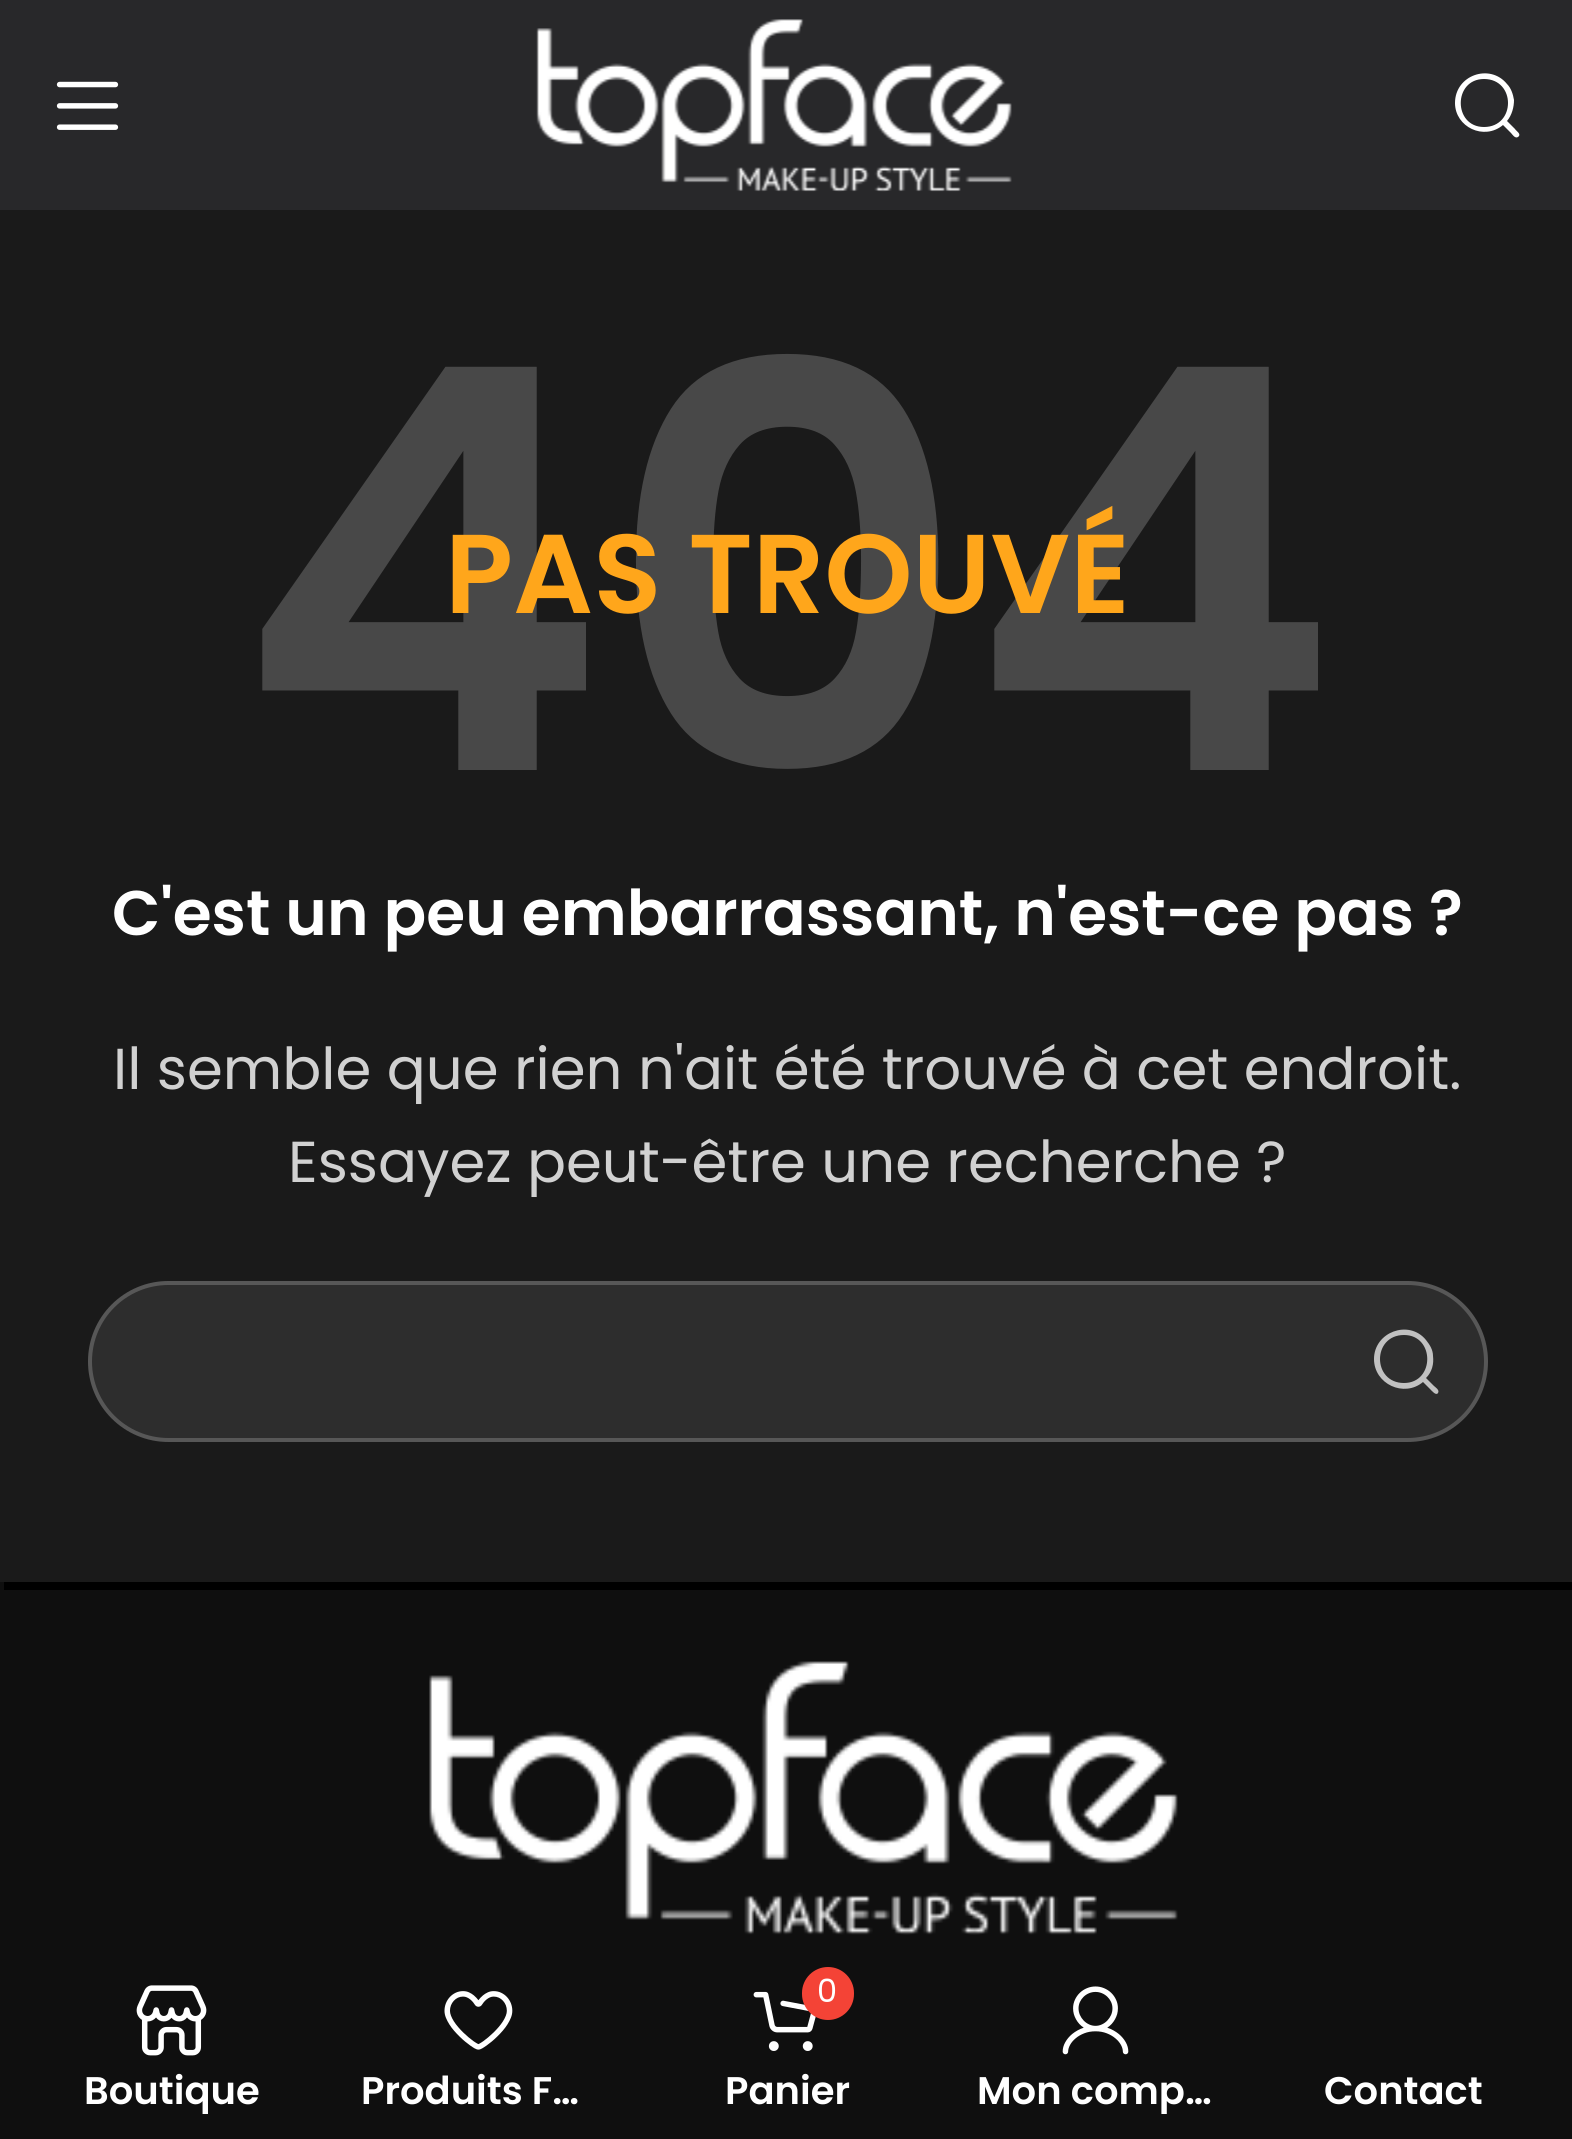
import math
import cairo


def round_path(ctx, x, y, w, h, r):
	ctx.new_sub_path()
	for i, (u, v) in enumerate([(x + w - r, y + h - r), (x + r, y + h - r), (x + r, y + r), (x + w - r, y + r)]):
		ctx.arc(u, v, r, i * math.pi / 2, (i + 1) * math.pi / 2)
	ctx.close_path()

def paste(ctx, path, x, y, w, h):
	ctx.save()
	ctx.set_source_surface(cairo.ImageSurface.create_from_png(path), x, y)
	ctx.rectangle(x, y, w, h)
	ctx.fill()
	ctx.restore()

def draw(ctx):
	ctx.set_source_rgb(0.102, 0.102, 0.102)
	ctx.paint()
	ctx.set_source_rgb(0.157, 0.157, 0.165)
	ctx.rectangle(0, 0, 1572, 210)
	ctx.fill()
	paste(ctx, 'media/1.png', 56, 81, 63, 49)
	paste(ctx, 'media/2.png', 536, 19, 476, 173)
	ctx.set_source_rgb(1, 1, 1)
	ctx.new_path()
	ctx.move_to(1455, 103)
	ctx.curve_to(1455, 127, 1484, 141, 1503, 125)
	ctx.line_to(1511, 133)
	ctx.curve_to(1512, 134, 1515, 139, 1518, 137)
	ctx.curve_to(1522, 134, 1516, 131, 1515, 129)
	ctx.line_to(1507, 121)
	ctx.curve_to(1512, 115, 1514, 107, 1514, 100)
	ctx.curve_to(1513, 94, 1511, 88, 1507, 84)
	ctx.curve_to(1490, 63, 1455, 75, 1455, 103)
	ctx.close_path()
	ctx.move_to(1484, 127)
	ctx.curve_to(1453, 127, 1453, 79, 1484, 79)
	ctx.curve_to(1516, 79, 1516, 127, 1484, 127)
	ctx.close_path()
	ctx.fill()
	ctx.select_font_face('Poppins SemiBold')
	ctx.set_font_size(560)
	ctx.set_source_rgb(0.282, 0.282, 0.282)
	ctx.move_to(236, 770)
	ctx.show_text('404')
	ctx.set_font_size(112)
	ctx.set_source_rgb(1, 0.651, 0.106)
	ctx.move_to(445, 613)
	ctx.show_text('PAS TROUVÉ')
	ctx.set_font_size(63)
	ctx.set_source_rgb(1, 1, 1)
	ctx.move_to(112, 935)
	ctx.show_text('C\'est un peu embarrassant, n\'est-ce pas ?')
	ctx.select_font_face('Poppins')
	ctx.set_font_size(57.75)
	ctx.set_source_rgb(0.82, 0.82, 0.82)
	ctx.move_to(113, 1089)
	ctx.show_text('Il semble que rien n\'ait été trouvé à cet endroit.')
	ctx.move_to(288, 1182)
	ctx.show_text('Essayez peut-être une recherche ?')
	ctx.set_source_rgb(0.176, 0.176, 0.176)
	round_path(ctx, 88, 1281, 1400, 161, 80.5)
	ctx.fill()
	round_path(ctx, 90, 1283, 1396, 157, 78.5)
	ctx.set_source_rgba(1, 1, 1, 0.2)
	ctx.set_line_width(4)
	ctx.stroke()
	ctx.set_source_rgb(0.757, 0.757, 0.757)
	ctx.new_path()
	ctx.move_to(1374, 1359)
	ctx.curve_to(1374, 1384, 1404, 1398, 1423, 1382)
	ctx.line_to(1430, 1389)
	ctx.curve_to(1432, 1391, 1436, 1396, 1438, 1393)
	ctx.curve_to(1440, 1390, 1435, 1387, 1434, 1386)
	ctx.line_to(1426, 1378)
	ctx.curve_to(1432, 1372, 1434, 1364, 1433, 1356)
	ctx.curve_to(1433, 1350, 1430, 1345, 1426, 1340)
	ctx.curve_to(1409, 1319, 1374, 1332, 1374, 1359)
	ctx.close_path()
	ctx.move_to(1404, 1383)
	ctx.curve_to(1372, 1383, 1372, 1335, 1404, 1335)
	ctx.curve_to(1435, 1335, 1435, 1383, 1404, 1383)
	ctx.close_path()
	ctx.fill()
	ctx.set_source_rgb(0.059, 0.059, 0.059)
	ctx.rectangle(0, 1582, 1572, 557)
	ctx.fill()
	ctx.set_source_rgb(0, 0, 0)
	ctx.rectangle(4, 1582, 1568, 8)
	ctx.fill()
	paste(ctx, 'media/3.png', 429, 1661, 749, 274)
	paste(ctx, 'media/4.png', 136, 1985, 71, 71)
	ctx.save()
	ctx.rectangle(53, 2069, 238, 45)
	ctx.clip()
	ctx.select_font_face('Poppins SemiBold')
	ctx.set_font_size(38.5)
	ctx.set_source_rgb(1, 1, 1)
	ctx.move_to(84, 2104)
	ctx.show_text('Boutique')
	ctx.restore()
	paste(ctx, 'media/5.png', 444, 1991, 69, 59)
	ctx.select_font_face('Poppins SemiBold')
	ctx.set_font_size(38.5)
	ctx.set_source_rgb(1, 1, 1)
	ctx.move_to(361, 2104)
	ctx.show_text('Produits F…')
	paste(ctx, 'media/6.png', 753, 1991, 63, 60)
	ctx.set_source_rgb(0.957, 0.263, 0.212)
	round_path(ctx, 802, 1967, 52, 53, 26)
	ctx.fill()
	ctx.select_font_face('Poppins')
	ctx.set_font_size(32)
	ctx.set_source_rgb(1, 1, 1)
	ctx.move_to(817, 2002)
	ctx.show_text('0')
	ctx.select_font_face('Poppins SemiBold')
	ctx.set_font_size(38.5)
	ctx.move_to(725, 2104)
	ctx.show_text('Panier')
	paste(ctx, 'media/7.png', 1062, 1986, 67, 69)
	ctx.save()
	ctx.rectangle(977, 2069, 238, 45)
	ctx.clip()
	ctx.move_to(977, 2104)
	ctx.show_text('Mon comp…')
	ctx.restore()
	ctx.move_to(1324, 2104)
	ctx.show_text('Contact')


surface = cairo.ImageSurface(cairo.FORMAT_RGB24, 1572, 2139)
ctx = cairo.Context(surface)
options = cairo.FontOptions()
options.set_hint_metrics(cairo.HINT_METRICS_OFF)
options.set_hint_style(cairo.HINT_STYLE_NONE)
ctx.set_font_options(options)
ctx.set_miter_limit(4)
draw(ctx)
surface.write_to_png('image.png')
